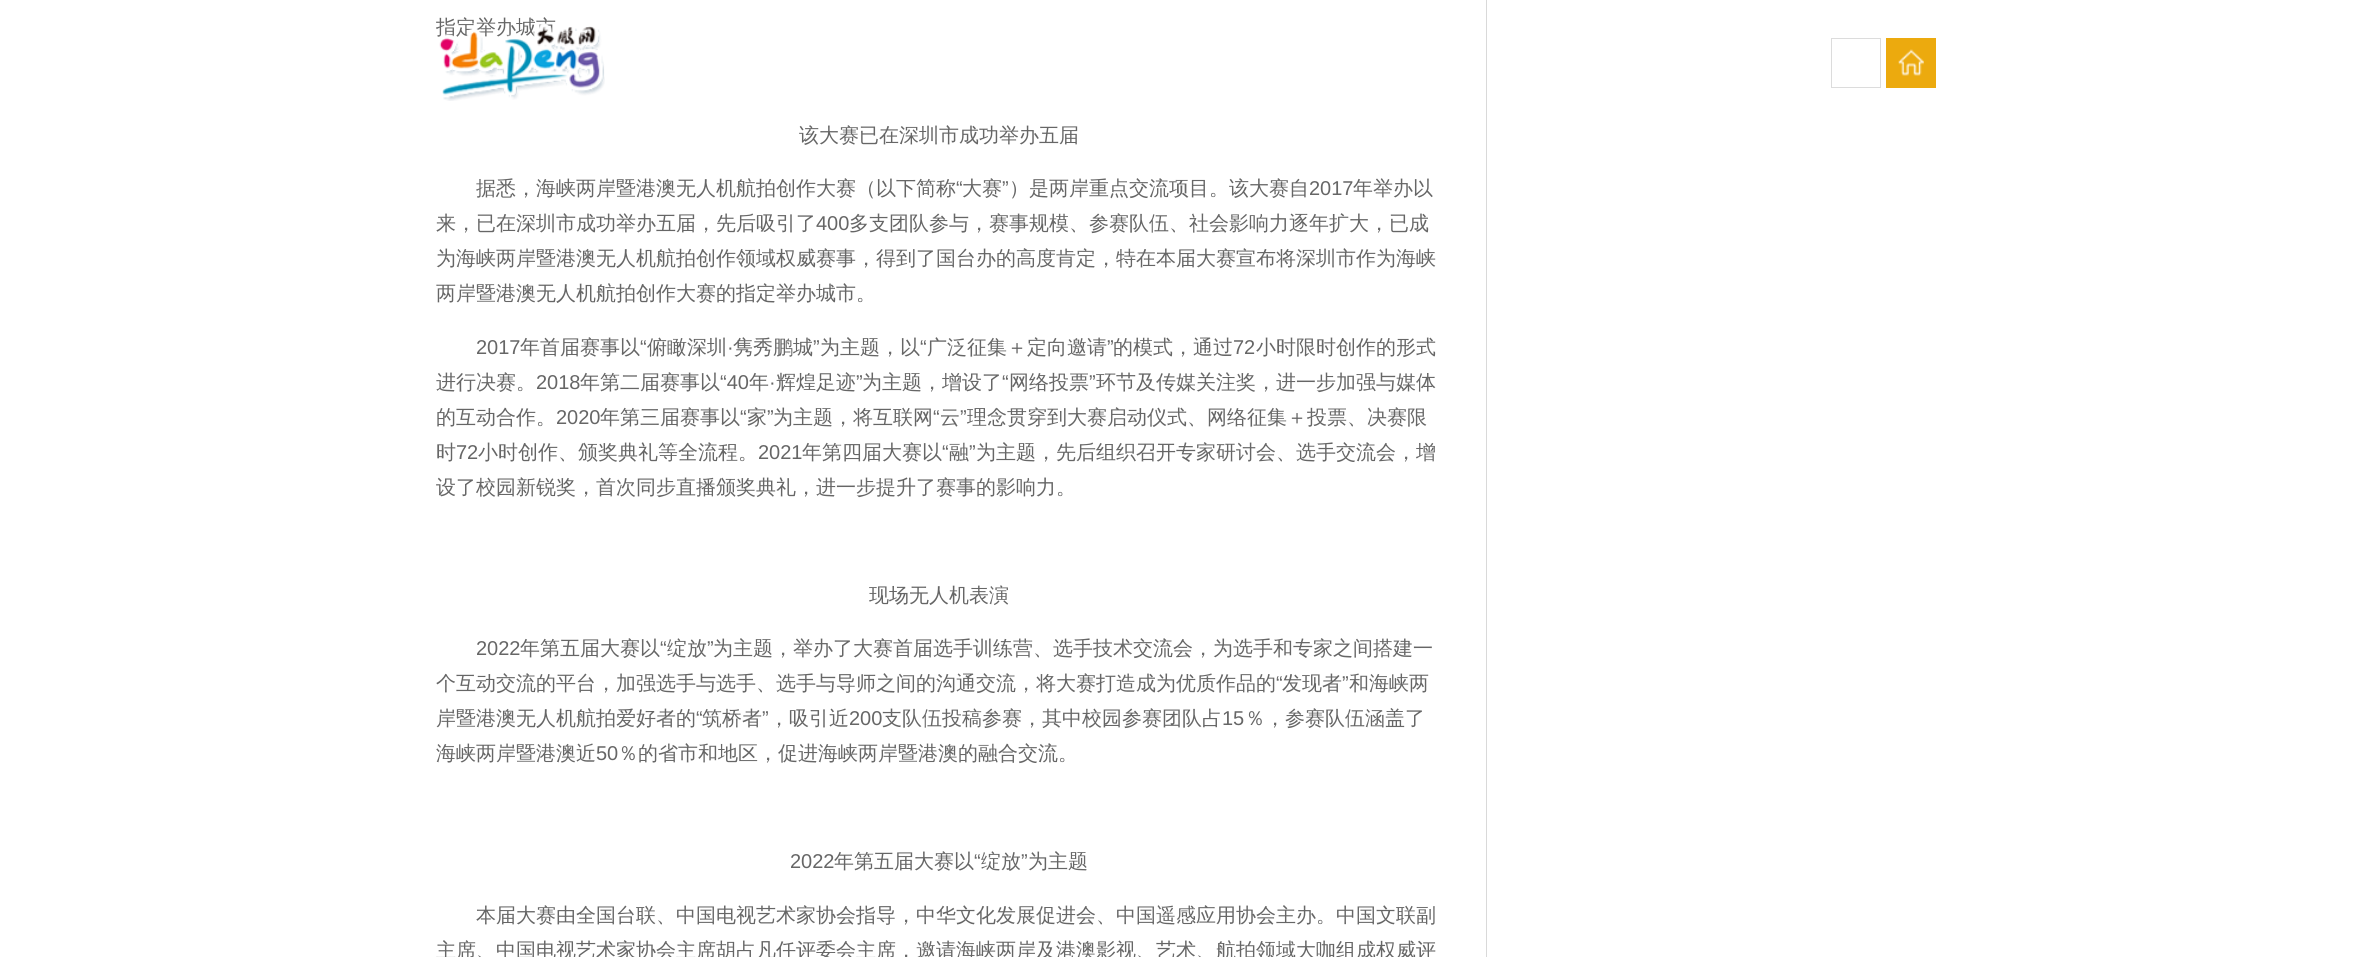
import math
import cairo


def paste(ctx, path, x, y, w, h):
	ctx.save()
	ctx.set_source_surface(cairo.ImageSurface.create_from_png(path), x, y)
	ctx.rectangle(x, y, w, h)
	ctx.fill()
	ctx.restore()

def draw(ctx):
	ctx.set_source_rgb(1, 1, 1)
	ctx.paint()
	ctx.save()
	ctx.rectangle(436, 0, 1500, 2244)
	ctx.clip()
	ctx.select_font_face('WenQuanYi Zen Hei Medium')
	ctx.set_font_size(20)
	ctx.set_source_rgb(0.4, 0.4, 0.4)
	ctx.move_to(436, 34)
	ctx.show_text('指定举办城市')
	ctx.restore()
	ctx.select_font_face('WenQuanYi Zen Hei Medium')
	ctx.set_font_size(20)
	ctx.set_source_rgb(0.4, 0.4, 0.4)
	ctx.move_to(799, 142)
	ctx.show_text('该大赛已在深圳市成功举办五届')
	ctx.move_to(476, 195)
	ctx.show_text('据悉，海峡两岸暨港澳无人机航拍创作大赛（以下简称')
	ctx.select_font_face('Liberation Sans')
	ctx.move_to(956, 195)
	ctx.show_text('“')
	ctx.select_font_face('WenQuanYi Zen Hei Medium')
	ctx.move_to(962, 195)
	ctx.show_text('大赛')
	ctx.select_font_face('Liberation Sans')
	ctx.move_to(1002, 195)
	ctx.show_text('”')
	ctx.select_font_face('WenQuanYi Zen Hei Medium')
	ctx.move_to(1009, 195)
	ctx.show_text('）是两岸重点交流项目。该大赛自')
	ctx.select_font_face('Liberation Sans')
	ctx.move_to(1309, 195)
	ctx.show_text('2017')
	ctx.select_font_face('WenQuanYi Zen Hei Medium')
	ctx.move_to(1353, 195)
	ctx.show_text('年举办以')
	ctx.move_to(436, 230)
	ctx.show_text('来，已在深圳市成功举办五届，先后吸引了')
	ctx.select_font_face('Liberation Sans')
	ctx.move_to(816, 230)
	ctx.show_text('400')
	ctx.select_font_face('WenQuanYi Zen Hei Medium')
	for x, y, s in [
		(849, 230, '多支团队参与，赛事规模、参赛队伍、社会影响力逐年扩大，已成'),
		(436, 265, '为海峡两岸暨港澳无人机航拍创作领域权威赛事，得到了国台办的高度肯定，特在本届大赛宣布将深圳市作为海峡'),
		(436, 300, '两岸暨港澳无人机航拍创作大赛的指定举办城市。'),
	]:
		ctx.move_to(x, y)
		ctx.show_text(s)
	ctx.select_font_face('Liberation Sans')
	ctx.move_to(476, 354)
	ctx.show_text('2017')
	ctx.select_font_face('WenQuanYi Zen Hei Medium')
	ctx.move_to(520, 354)
	ctx.show_text('年首届赛事以')
	ctx.select_font_face('Liberation Sans')
	ctx.move_to(640, 354)
	ctx.show_text('“')
	ctx.select_font_face('WenQuanYi Zen Hei Medium')
	ctx.move_to(647, 354)
	ctx.show_text('俯瞰深圳')
	ctx.select_font_face('Liberation Sans')
	ctx.move_to(727, 354)
	ctx.show_text('·')
	ctx.select_font_face('WenQuanYi Zen Hei Medium')
	ctx.move_to(733, 354)
	ctx.show_text('隽秀鹏城')
	ctx.select_font_face('Liberation Sans')
	ctx.move_to(813, 354)
	ctx.show_text('”')
	ctx.select_font_face('WenQuanYi Zen Hei Medium')
	ctx.move_to(820, 354)
	ctx.show_text('为主题，以')
	ctx.select_font_face('Liberation Sans')
	ctx.move_to(920, 354)
	ctx.show_text('“')
	ctx.select_font_face('WenQuanYi Zen Hei Medium')
	ctx.move_to(927, 354)
	ctx.show_text('广泛征集＋定向邀请')
	ctx.select_font_face('Liberation Sans')
	ctx.move_to(1107, 354)
	ctx.show_text('”')
	ctx.select_font_face('WenQuanYi Zen Hei Medium')
	ctx.move_to(1113, 354)
	ctx.show_text('的模式，通过')
	ctx.select_font_face('Liberation Sans')
	ctx.move_to(1233, 354)
	ctx.show_text('72')
	ctx.select_font_face('WenQuanYi Zen Hei Medium')
	ctx.move_to(1256, 354)
	ctx.show_text('小时限时创作的形式')
	ctx.move_to(436, 389)
	ctx.show_text('进行决赛。')
	ctx.select_font_face('Liberation Sans')
	ctx.move_to(536, 389)
	ctx.show_text('2018')
	ctx.select_font_face('WenQuanYi Zen Hei Medium')
	ctx.move_to(580, 389)
	ctx.show_text('年第二届赛事以')
	ctx.select_font_face('Liberation Sans')
	ctx.move_to(720, 389)
	ctx.show_text('“40')
	ctx.select_font_face('WenQuanYi Zen Hei Medium')
	ctx.move_to(749, 389)
	ctx.show_text('年')
	ctx.move_to(776, 389)
	ctx.show_text('辉煌足迹')
	ctx.select_font_face('Liberation Sans')
	ctx.move_to(856, 389)
	ctx.show_text('”')
	ctx.select_font_face('WenQuanYi Zen Hei Medium')
	ctx.move_to(862, 389)
	ctx.show_text('为主题，增设了')
	ctx.select_font_face('Liberation Sans')
	ctx.move_to(1002, 389)
	ctx.show_text('“')
	ctx.select_font_face('WenQuanYi Zen Hei Medium')
	ctx.move_to(1009, 389)
	ctx.show_text('网络投票')
	ctx.select_font_face('Liberation Sans')
	ctx.move_to(1089, 389)
	ctx.show_text('”')
	ctx.select_font_face('WenQuanYi Zen Hei Medium')
	ctx.move_to(1096, 389)
	ctx.show_text('环节及传媒关注奖，进一步加强与媒体')
	ctx.select_font_face('Liberation Sans')
	ctx.move_to(769, 389)
	ctx.show_text('·')
	ctx.select_font_face('WenQuanYi Zen Hei Medium')
	ctx.move_to(436, 424)
	ctx.show_text('的互动合作。')
	ctx.select_font_face('Liberation Sans')
	ctx.move_to(556, 424)
	ctx.show_text('2020')
	ctx.select_font_face('WenQuanYi Zen Hei Medium')
	ctx.move_to(600, 424)
	ctx.show_text('年第三届赛事以')
	ctx.select_font_face('Liberation Sans')
	ctx.move_to(740, 424)
	ctx.show_text('“')
	ctx.select_font_face('WenQuanYi Zen Hei Medium')
	ctx.move_to(747, 424)
	ctx.show_text('家')
	ctx.select_font_face('Liberation Sans')
	ctx.move_to(767, 424)
	ctx.show_text('”')
	ctx.select_font_face('WenQuanYi Zen Hei Medium')
	ctx.move_to(773, 424)
	ctx.show_text('为主题，将互联网')
	ctx.select_font_face('Liberation Sans')
	ctx.move_to(933, 424)
	ctx.show_text('“')
	ctx.select_font_face('WenQuanYi Zen Hei Medium')
	ctx.move_to(940, 424)
	ctx.show_text('云')
	ctx.select_font_face('Liberation Sans')
	ctx.move_to(960, 424)
	ctx.show_text('”')
	ctx.select_font_face('WenQuanYi Zen Hei Medium')
	ctx.move_to(967, 424)
	ctx.show_text('理念贯穿到大赛启动仪式、网络征集＋投票、决赛限')
	ctx.move_to(436, 459)
	ctx.show_text('时')
	ctx.select_font_face('Liberation Sans')
	ctx.move_to(456, 459)
	ctx.show_text('72')
	ctx.select_font_face('WenQuanYi Zen Hei Medium')
	ctx.move_to(478, 459)
	ctx.show_text('小时创作、颁奖典礼等全流程。')
	ctx.select_font_face('Liberation Sans')
	ctx.move_to(758, 459)
	ctx.show_text('2021')
	ctx.select_font_face('WenQuanYi Zen Hei Medium')
	ctx.move_to(802, 459)
	ctx.show_text('年第四届大赛以')
	ctx.select_font_face('Liberation Sans')
	ctx.move_to(942, 459)
	ctx.show_text('“')
	ctx.select_font_face('WenQuanYi Zen Hei Medium')
	ctx.move_to(949, 459)
	ctx.show_text('融')
	ctx.select_font_face('Liberation Sans')
	ctx.move_to(969, 459)
	ctx.show_text('”')
	ctx.select_font_face('WenQuanYi Zen Hei Medium')
	for x, y, s in [
		(976, 459, '为主题，先后组织召开专家研讨会、选手交流会，增'),
		(436, 494, '设了校园新锐奖，首次同步直播颁奖典礼，进一步提升了赛事的影响力。'),
		(869, 602, '现场无人机表演'),
	]:
		ctx.move_to(x, y)
		ctx.show_text(s)
	ctx.select_font_face('Liberation Sans')
	ctx.move_to(476, 655)
	ctx.show_text('2022')
	ctx.select_font_face('WenQuanYi Zen Hei Medium')
	ctx.move_to(520, 655)
	ctx.show_text('年第五届大赛以')
	ctx.select_font_face('Liberation Sans')
	ctx.move_to(660, 655)
	ctx.show_text('“')
	ctx.select_font_face('WenQuanYi Zen Hei Medium')
	ctx.move_to(667, 655)
	ctx.show_text('绽放')
	ctx.select_font_face('Liberation Sans')
	ctx.move_to(707, 655)
	ctx.show_text('”')
	ctx.select_font_face('WenQuanYi Zen Hei Medium')
	ctx.move_to(713, 655)
	ctx.show_text('为主题，举办了大赛首届选手训练营、选手技术交流会，为选手和专家之间搭建一')
	ctx.move_to(436, 690)
	ctx.show_text('个互动交流的平台，加强选手与选手、选手与导师之间的沟通交流，将大赛打造成为优质作品的')
	ctx.select_font_face('Liberation Sans')
	ctx.move_to(1276, 690)
	ctx.show_text('“')
	ctx.select_font_face('WenQuanYi Zen Hei Medium')
	ctx.move_to(1282, 690)
	ctx.show_text('发现者')
	ctx.select_font_face('Liberation Sans')
	ctx.move_to(1342, 690)
	ctx.show_text('”')
	ctx.select_font_face('WenQuanYi Zen Hei Medium')
	ctx.move_to(1349, 690)
	ctx.show_text('和海峡两')
	ctx.move_to(436, 725)
	ctx.show_text('岸暨港澳无人机航拍爱好者的')
	ctx.select_font_face('Liberation Sans')
	ctx.move_to(696, 725)
	ctx.show_text('“')
	ctx.select_font_face('WenQuanYi Zen Hei Medium')
	ctx.move_to(702, 725)
	ctx.show_text('筑桥者')
	ctx.select_font_face('Liberation Sans')
	ctx.move_to(762, 725)
	ctx.show_text('”')
	ctx.select_font_face('WenQuanYi Zen Hei Medium')
	ctx.move_to(769, 725)
	ctx.show_text('，吸引近')
	ctx.select_font_face('Liberation Sans')
	ctx.move_to(849, 725)
	ctx.show_text('200')
	ctx.select_font_face('WenQuanYi Zen Hei Medium')
	ctx.move_to(882, 725)
	ctx.show_text('支队伍投稿参赛，其中校园参赛团队占')
	ctx.select_font_face('Liberation Sans')
	ctx.move_to(1222, 725)
	ctx.show_text('15')
	ctx.select_font_face('WenQuanYi Zen Hei Medium')
	ctx.move_to(1245, 725)
	ctx.show_text('％，参赛队伍涵盖了')
	ctx.move_to(436, 760)
	ctx.show_text('海峡两岸暨港澳近')
	ctx.select_font_face('Liberation Sans')
	ctx.move_to(596, 760)
	ctx.show_text('50')
	ctx.select_font_face('WenQuanYi Zen Hei Medium')
	ctx.move_to(618, 760)
	ctx.show_text('％的省市和地区，促进海峡两岸暨港澳的融合交流。')
	ctx.select_font_face('Liberation Sans')
	ctx.move_to(790, 868)
	ctx.show_text('2022')
	ctx.select_font_face('WenQuanYi Zen Hei Medium')
	ctx.move_to(834, 868)
	ctx.show_text('年第五届大赛以')
	ctx.select_font_face('Liberation Sans')
	ctx.move_to(974, 868)
	ctx.show_text('“')
	ctx.select_font_face('WenQuanYi Zen Hei Medium')
	ctx.move_to(981, 868)
	ctx.show_text('绽放')
	ctx.select_font_face('Liberation Sans')
	ctx.move_to(1021, 868)
	ctx.show_text('”')
	ctx.select_font_face('WenQuanYi Zen Hei Medium')
	for x, y, s in [
		(1028, 868, '为主题'),
		(476, 922, '本届大赛由全国台联、中国电视艺术家协会指导，中华文化发展促进会、中国遥感应用协会主办。中国文联副'),
		(436, 957, '主席、中国电视艺术家协会主席胡占凡任评委会主席，邀请海峡两岸及港澳影视、艺术、航拍领域大咖组成权威评'),
	]:
		ctx.move_to(x, y)
		ctx.show_text(s)
	ctx.set_source_rgb(0.851, 0.851, 0.851)
	ctx.rectangle(1486, 0, 1, 957)
	ctx.fill()
	paste(ctx, 'media/1.png', 438, 22, 167, 79)
	ctx.rectangle(1831.5, 38.5, 49, 49)
	ctx.set_source_rgb(0.863, 0.863, 0.863)
	ctx.set_line_width(1)
	ctx.stroke()
	ctx.set_source_rgb(0.922, 0.667, 0.055)
	ctx.rectangle(1886, 38, 50, 50)
	ctx.fill()
	paste(ctx, 'media/2.png', 1898, 49, 26, 27)


surface = cairo.ImageSurface(cairo.FORMAT_RGB24, 2371, 957)
ctx = cairo.Context(surface)
options = cairo.FontOptions()
options.set_hint_metrics(cairo.HINT_METRICS_OFF)
options.set_hint_style(cairo.HINT_STYLE_NONE)
ctx.set_font_options(options)
ctx.set_miter_limit(4)
draw(ctx)
surface.write_to_png('image.png')
